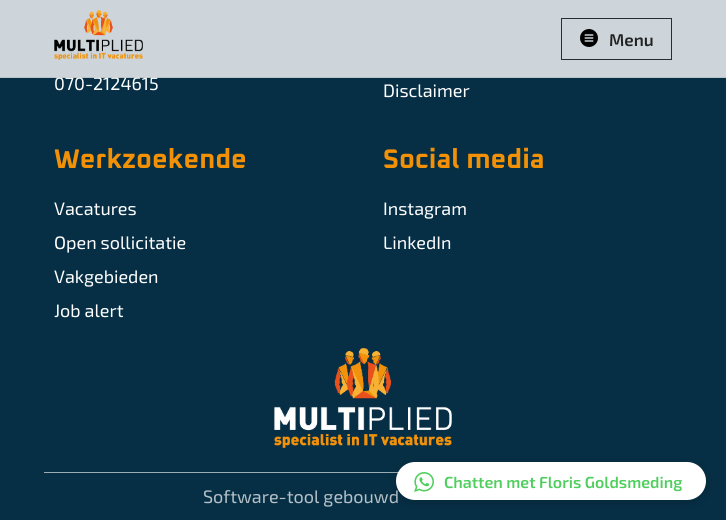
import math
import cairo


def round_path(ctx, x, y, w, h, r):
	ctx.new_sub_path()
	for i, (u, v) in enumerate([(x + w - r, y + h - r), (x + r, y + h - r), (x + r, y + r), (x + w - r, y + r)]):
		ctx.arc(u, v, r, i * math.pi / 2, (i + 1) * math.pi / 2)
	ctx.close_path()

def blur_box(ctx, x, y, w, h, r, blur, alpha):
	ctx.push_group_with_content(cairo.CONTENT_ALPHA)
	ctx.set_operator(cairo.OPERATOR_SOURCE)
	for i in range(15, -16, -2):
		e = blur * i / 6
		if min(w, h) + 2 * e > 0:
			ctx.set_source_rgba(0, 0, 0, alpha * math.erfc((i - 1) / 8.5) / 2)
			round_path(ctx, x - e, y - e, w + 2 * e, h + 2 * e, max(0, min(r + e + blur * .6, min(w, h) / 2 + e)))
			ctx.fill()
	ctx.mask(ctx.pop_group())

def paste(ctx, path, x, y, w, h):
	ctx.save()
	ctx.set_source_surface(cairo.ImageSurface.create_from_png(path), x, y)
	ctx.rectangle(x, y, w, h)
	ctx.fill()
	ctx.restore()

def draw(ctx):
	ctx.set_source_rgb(0.027, 0.184, 0.271)
	ctx.paint()
	ctx.select_font_face('Exo 2')
	ctx.set_font_size(18)
	ctx.set_source_rgb(1, 1, 1)
	ctx.move_to(54, 90)
	ctx.show_text('070-2124615')
	ctx.set_source_rgba(1, 1, 1, 0.8)
	ctx.rectangle(0, 0, 726, 78)
	ctx.fill()
	ctx.set_source_rgba(0.133, 0.133, 0.133, 0.1)
	ctx.rectangle(0, 77, 726, 1)
	ctx.fill()
	paste(ctx, 'media/1.png', 54, 10, 89, 50)
	ctx.rectangle(561.5, 18.5, 110, 41)
	ctx.set_source_rgb(0.169, 0.169, 0.2)
	ctx.set_line_width(1)
	ctx.stroke()
	paste(ctx, 'media/2.png', 580, 29, 18, 18)
	ctx.select_font_face('Exo 2 SemiBold')
	ctx.set_font_size(17)
	ctx.set_source_rgb(0.133, 0.133, 0.133)
	ctx.move_to(609, 46)
	ctx.show_text('Menu')
	ctx.select_font_face('Exo 2')
	ctx.set_font_size(18)
	ctx.set_source_rgb(1, 1, 1)
	ctx.move_to(383, 97)
	ctx.show_text('Disclaimer')
	ctx.select_font_face('Oxanium', cairo.FONT_SLANT_NORMAL, cairo.FONT_WEIGHT_BOLD)
	ctx.set_font_size(27)
	ctx.set_source_rgb(0.949, 0.569, 0.027)
	ctx.move_to(54, 168)
	ctx.show_text('Werkzoekende')
	ctx.select_font_face('Exo 2')
	ctx.set_font_size(18)
	ctx.set_source_rgb(1, 1, 1)
	for x, y, s in [
		(54, 215, 'Vacatures'),
		(54, 249, 'Open sollicitatie'),
		(54, 283, 'Vakgebieden'),
		(54, 317, 'Job alert'),
	]:
		ctx.move_to(x, y)
		ctx.show_text(s)
	ctx.select_font_face('Oxanium', cairo.FONT_SLANT_NORMAL, cairo.FONT_WEIGHT_BOLD)
	ctx.set_font_size(27)
	ctx.set_source_rgb(0.949, 0.569, 0.027)
	ctx.move_to(383, 168)
	ctx.show_text('Social media')
	ctx.select_font_face('Exo 2')
	ctx.set_font_size(18)
	ctx.set_source_rgb(1, 1, 1)
	ctx.move_to(383, 215)
	ctx.show_text('Instagram')
	ctx.move_to(383, 249)
	ctx.show_text('LinkedIn')
	paste(ctx, 'media/3.png', 274, 348, 178, 100)
	ctx.set_source_rgb(0.612, 0.675, 0.71)
	ctx.rectangle(44, 472, 355, 1)
	ctx.fill()
	ctx.set_source_rgb(0.71, 0.757, 0.78)
	ctx.move_to(203, 503)
	ctx.show_text('Software-tool gebouwd')
	ctx.set_source_rgb(0, 0, 0)
	blur_box(ctx, 396, 465, 310, 38, 19, 6, 0.15)
	ctx.set_source_rgb(1, 1, 1)
	round_path(ctx, 396, 462, 310, 38, 19)
	ctx.fill()
	paste(ctx, 'media/4.png', 414, 472, 20, 20)
	ctx.select_font_face('Exo 2 SemiBold')
	ctx.set_font_size(16)
	ctx.set_source_rgb(0.31, 0.808, 0.365)
	ctx.move_to(444, 488)
	ctx.show_text('Chatten met Floris Goldsmeding')


surface = cairo.ImageSurface(cairo.FORMAT_RGB24, 726, 520)
ctx = cairo.Context(surface)
options = cairo.FontOptions()
options.set_hint_metrics(cairo.HINT_METRICS_OFF)
options.set_hint_style(cairo.HINT_STYLE_NONE)
ctx.set_font_options(options)
ctx.set_miter_limit(4)
draw(ctx)
surface.write_to_png('image.png')
